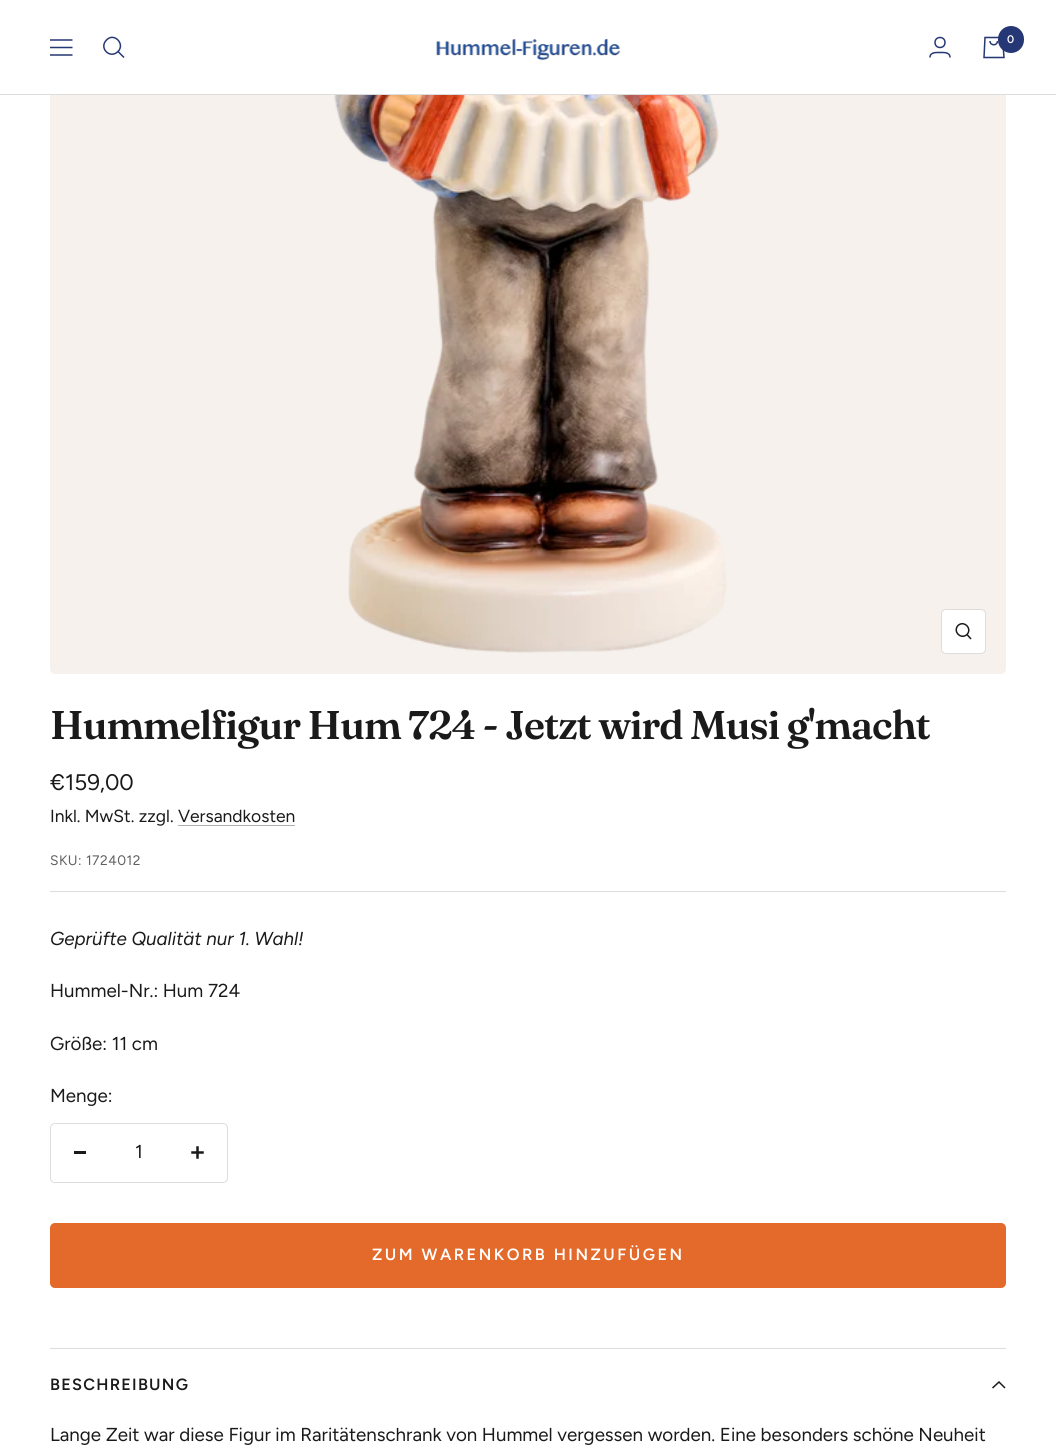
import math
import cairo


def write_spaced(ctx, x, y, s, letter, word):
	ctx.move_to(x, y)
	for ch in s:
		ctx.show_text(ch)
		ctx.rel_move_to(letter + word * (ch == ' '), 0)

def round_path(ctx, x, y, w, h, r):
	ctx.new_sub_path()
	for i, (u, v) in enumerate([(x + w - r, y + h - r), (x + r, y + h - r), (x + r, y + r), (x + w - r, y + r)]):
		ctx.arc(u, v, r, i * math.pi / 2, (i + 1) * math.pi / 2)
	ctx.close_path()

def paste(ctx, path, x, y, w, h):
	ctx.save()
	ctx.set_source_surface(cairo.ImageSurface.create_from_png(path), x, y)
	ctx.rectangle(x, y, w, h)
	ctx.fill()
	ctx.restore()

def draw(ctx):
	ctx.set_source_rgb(1, 1, 1)
	ctx.paint()
	ctx.set_source_rgb(0.961, 0.945, 0.925)
	round_path(ctx, 50, -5, 956, 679, 5)
	ctx.fill()
	ctx.set_source_rgb(0.867, 0.867, 0.867)
	ctx.rectangle(0, 94, 1056, 1)
	ctx.fill()
	ctx.set_source_rgb(1, 1, 1)
	ctx.rectangle(50, 0, 956, 94)
	ctx.fill()
	ctx.new_path()
	ctx.move_to(50, 40)
	ctx.line_to(72.5, 40)
	ctx.move_to(50, 55)
	ctx.line_to(72.5, 55)
	ctx.close_path()
	ctx.move_to(50, 47.5)
	ctx.line_to(72.5, 47.5)
	ctx.close_path()
	ctx.set_source_rgb(0.145, 0.216, 0.455)
	ctx.set_line_width(1.5)
	ctx.stroke()
	ctx.new_path()
	ctx.move_to(118, 51.5)
	ctx.curve_to(125.5, 44, 114, 32, 106.5, 40)
	ctx.curve_to(98.5, 48, 110, 59.5, 118, 51.5)
	ctx.close_path()
	ctx.move_to(118, 51.5)
	ctx.line_to(124, 57.5)
	ctx.stroke()
	paste(ctx, 'media/1.png', 436, 39, 184, 22)
	ctx.arc(940, 42.5, 5, 0, 2 * math.pi)
	ctx.stroke()
	ctx.new_path()
	ctx.move_to(930, 57.5)
	ctx.curve_to(930, 52, 936, 52.5, 940, 52.5)
	ctx.curve_to(944, 52.5, 950, 52, 950, 57.5)
	ctx.stroke()
	ctx.new_path()
	ctx.move_to(985, 37.5)
	ctx.line_to(1002.5, 37.5)
	ctx.line_to(1004, 57.5)
	ctx.line_to(984, 57.5)
	ctx.close_path()
	ctx.move_to(990, 41)
	ctx.curve_to(990, 46, 997.5, 46, 997.5, 41)
	ctx.stroke()
	round_path(ctx, 998, 26, 26, 27, 13)
	ctx.fill()
	ctx.select_font_face('Figtree SemiBold')
	ctx.set_font_size(11)
	ctx.set_source_rgb(1, 1, 1)
	ctx.move_to(1007, 43)
	ctx.show_text('0')
	paste(ctx, 'media/2.png', 334, 95, 393, 558)
	round_path(ctx, 941.5, 609.5, 44, 44, 4.5)
	ctx.fill_preserve()
	ctx.set_source_rgb(0.867, 0.867, 0.867)
	ctx.set_line_width(1)
	ctx.stroke()
	ctx.new_path()
	ctx.move_to(967, 634.5)
	ctx.curve_to(972.5, 628.5, 964, 620, 958, 625.5)
	ctx.curve_to(952.5, 631.5, 961, 640, 967, 634.5)
	ctx.close_path()
	ctx.move_to(967, 634.5)
	ctx.line_to(971, 639)
	ctx.set_source_rgb(0.102, 0.102, 0.102)
	ctx.set_line_width(1.5)
	ctx.stroke()
	ctx.set_source_rgb(0.867, 0.867, 0.867)
	ctx.rectangle(50, 891, 956, 1)
	ctx.fill()
	ctx.select_font_face('Fraunces SemiBold')
	ctx.set_font_size(40)
	ctx.set_source_rgb(0.102, 0.102, 0.102)
	write_spaced(ctx, 50, 739, 'Hummelfigur Hum 724 - Jetzt wird Musi g\'macht', -1, 0)
	ctx.select_font_face('Figtree')
	ctx.set_font_size(22.5)
	ctx.move_to(50, 790)
	ctx.show_text('€159,00')
	ctx.set_font_size(17.5)
	ctx.move_to(50, 822)
	ctx.show_text('Inkl. MwSt. zzgl. Versandkosten')
	ctx.set_source_rgb(0.686, 0.686, 0.686)
	ctx.rectangle(178, 825, 117, 1)
	ctx.fill()
	ctx.set_font_size(13.75)
	ctx.set_source_rgb(0.373, 0.373, 0.373)
	write_spaced(ctx, 50, 865, 'SKU: 1724012', 0.5, 0)
	ctx.select_font_face('Figtree', cairo.FONT_SLANT_ITALIC)
	ctx.set_font_size(18.75)
	ctx.set_source_rgb(0.102, 0.102, 0.102)
	ctx.move_to(50, 945)
	ctx.show_text('Geprüfte Qualität nur 1. Wahl!')
	ctx.select_font_face('Figtree')
	for x, y, s in [
		(50, 997, 'Hummel-Nr.: Hum 724'),
		(50, 1050, 'Größe: 11 cm'),
		(50, 1102, 'Menge:'),
	]:
		ctx.move_to(x, y)
		ctx.show_text(s)
	round_path(ctx, 50.5, 1123.5, 177, 59, 4.5)
	ctx.set_source_rgb(0.867, 0.867, 0.867)
	ctx.set_line_width(1)
	ctx.stroke()
	ctx.set_source_rgb(0.102, 0.102, 0.102)
	ctx.rectangle(74, 1151, 12, 3)
	ctx.fill()
	ctx.move_to(135, 1158)
	ctx.show_text('1')
	paste(ctx, 'media/3.png', 191, 1146, 13, 13)
	ctx.set_source_rgb(0.894, 0.416, 0.169)
	round_path(ctx, 50, 1223, 956, 65, 5)
	ctx.fill()
	ctx.select_font_face('Figtree SemiBold')
	ctx.set_font_size(16.25)
	ctx.set_source_rgb(1, 1, 1)
	write_spaced(ctx, 372, 1260, 'ZUM WARENKORB HINZUFÜGEN', 2.5, 0)
	ctx.set_source_rgb(0.867, 0.867, 0.867)
	ctx.rectangle(50, 1348, 956, 1)
	ctx.fill()
	ctx.set_source_rgb(0.102, 0.102, 0.102)
	write_spaced(ctx, 50, 1390, 'BESCHREIBUNG', 1.25, 0)
	ctx.new_path()
	ctx.move_to(1005, 1388)
	ctx.line_to(999, 1382)
	ctx.line_to(992.5, 1388)
	ctx.set_line_width(1.5)
	ctx.stroke()
	ctx.select_font_face('Figtree')
	ctx.set_font_size(18.75)
	ctx.move_to(50, 1441)
	ctx.show_text('Lange Zeit war diese Figur im Raritätenschrank von Hummel vergessen worden. Eine besonders schöne Neuheit')


surface = cairo.ImageSurface(cairo.FORMAT_RGB24, 1056, 1449)
ctx = cairo.Context(surface)
options = cairo.FontOptions()
options.set_hint_metrics(cairo.HINT_METRICS_OFF)
options.set_hint_style(cairo.HINT_STYLE_NONE)
ctx.set_font_options(options)
ctx.set_miter_limit(4)
draw(ctx)
surface.write_to_png('image.png')
